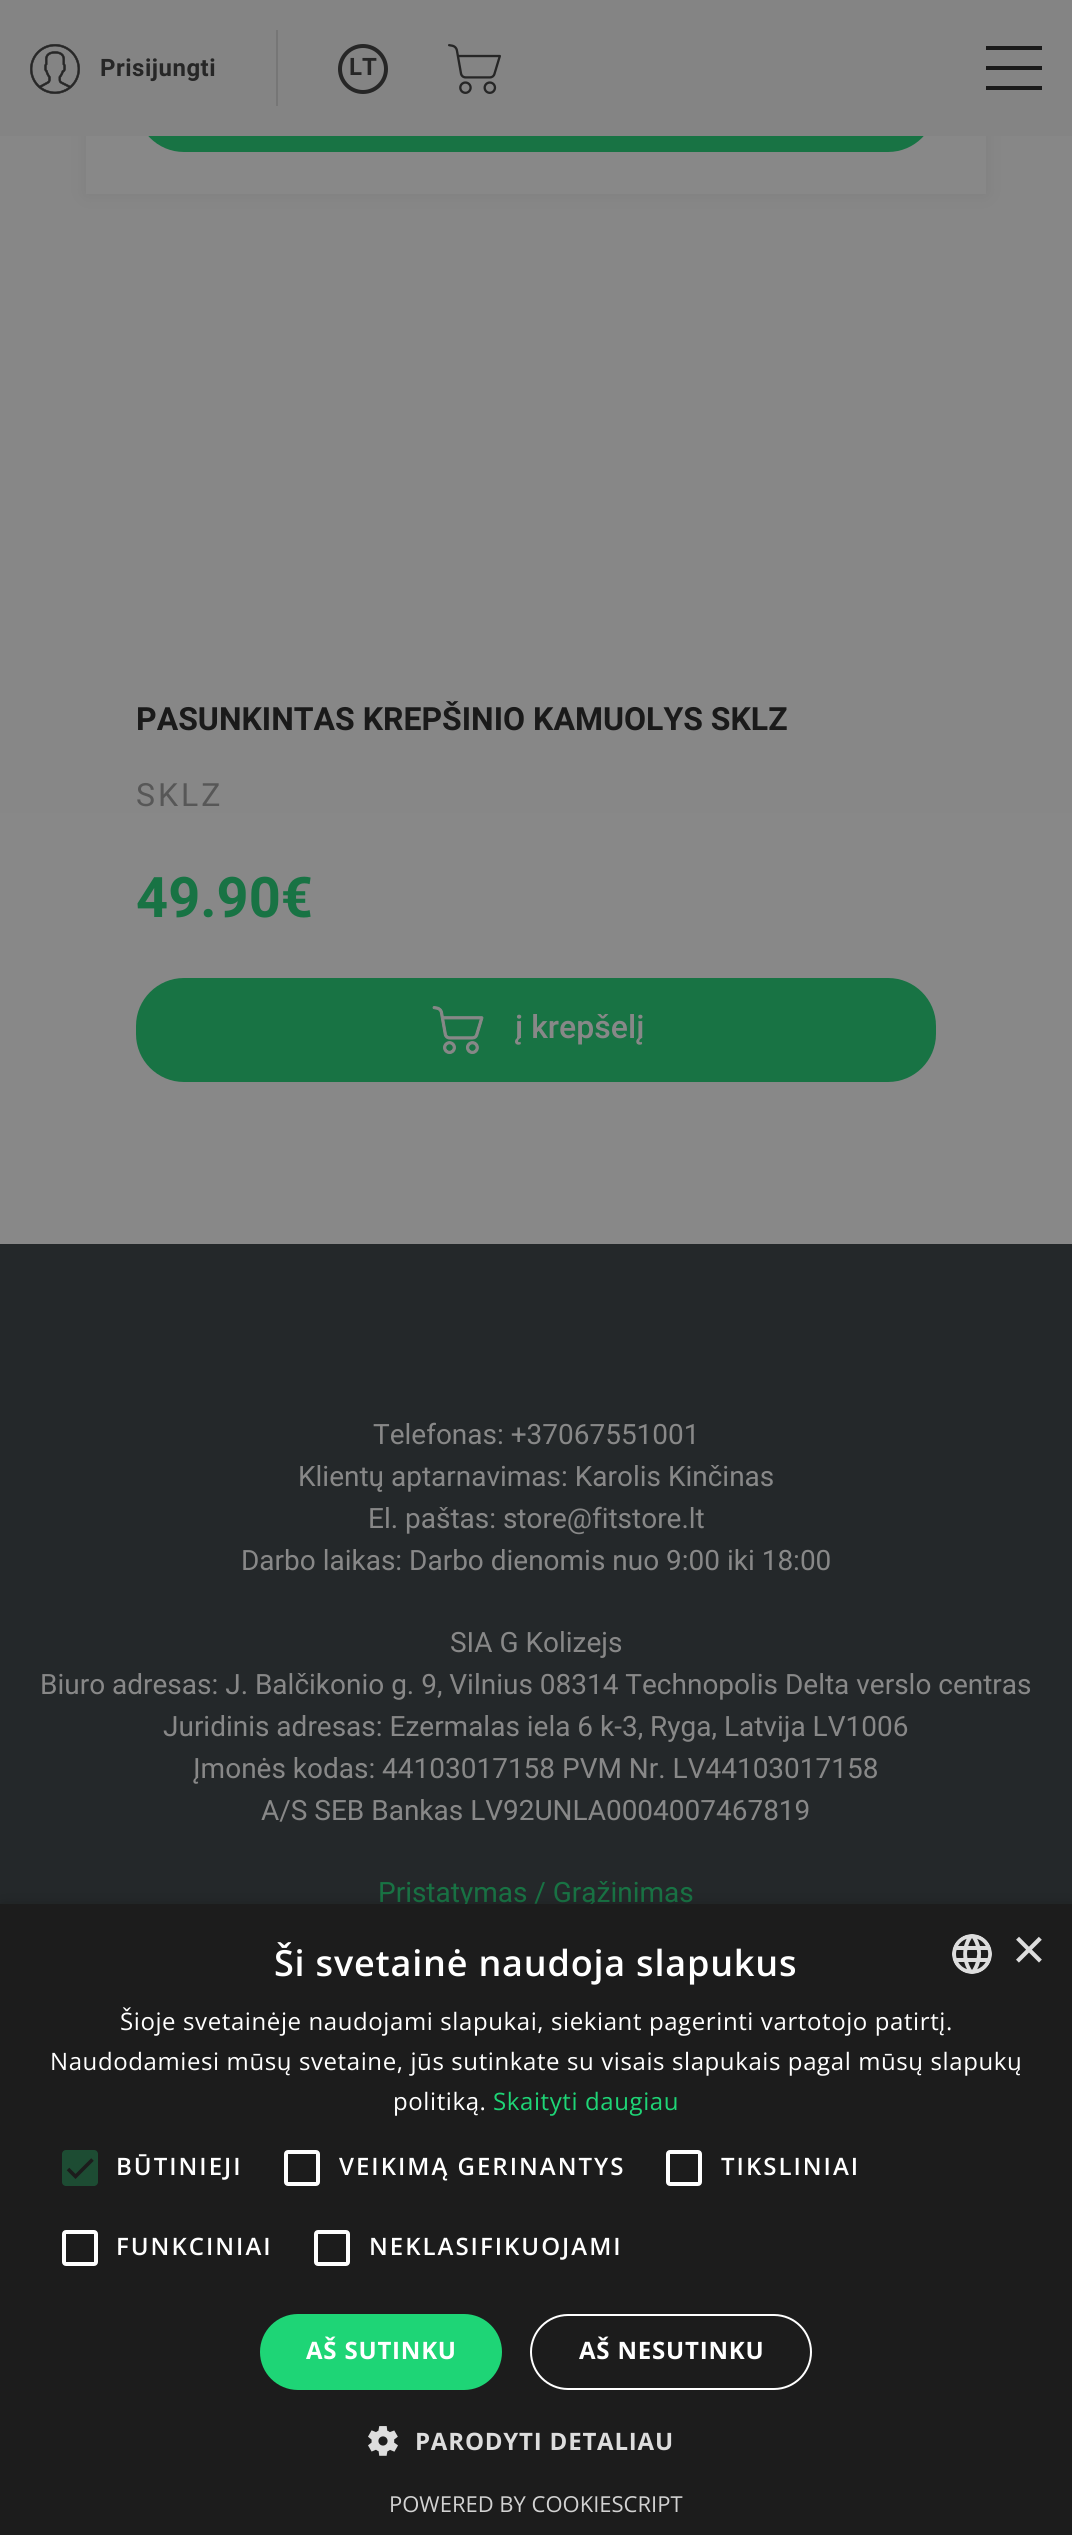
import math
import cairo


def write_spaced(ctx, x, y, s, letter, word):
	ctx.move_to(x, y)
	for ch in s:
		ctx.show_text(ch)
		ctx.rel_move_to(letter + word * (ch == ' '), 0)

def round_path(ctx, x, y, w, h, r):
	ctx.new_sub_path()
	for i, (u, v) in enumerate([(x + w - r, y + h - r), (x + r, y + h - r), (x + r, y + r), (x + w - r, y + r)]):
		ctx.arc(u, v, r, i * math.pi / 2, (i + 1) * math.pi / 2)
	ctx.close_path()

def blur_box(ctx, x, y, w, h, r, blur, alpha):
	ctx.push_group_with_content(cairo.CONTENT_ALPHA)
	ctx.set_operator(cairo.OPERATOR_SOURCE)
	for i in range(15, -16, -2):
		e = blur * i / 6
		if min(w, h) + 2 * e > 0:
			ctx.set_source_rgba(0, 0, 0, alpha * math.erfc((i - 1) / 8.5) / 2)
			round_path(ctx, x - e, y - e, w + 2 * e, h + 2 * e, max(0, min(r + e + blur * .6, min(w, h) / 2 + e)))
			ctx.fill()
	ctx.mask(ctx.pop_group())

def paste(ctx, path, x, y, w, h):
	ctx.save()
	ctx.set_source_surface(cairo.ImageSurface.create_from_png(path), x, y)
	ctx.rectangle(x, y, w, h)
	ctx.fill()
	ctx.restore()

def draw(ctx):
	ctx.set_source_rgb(1, 1, 1)
	ctx.paint()
	gradient = cairo.LinearGradient(536, -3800, 536, 1244)
	gradient.add_color_stop_rgba(0, 0.514, 0.514, 0.514, 1)
	gradient.add_color_stop_rgba(1, 0.533, 0.533, 0.533, 1)
	ctx.set_source(gradient)
	ctx.rectangle(0, 136, 1072, 1108)
	ctx.fill()
	ctx.set_source_rgb(0.035, 0.035, 0.035)
	blur_box(ctx, 86, -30, 900, 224, 0, 10, 0.07)
	ctx.set_source_rgb(0.533, 0.533, 0.533)
	ctx.rectangle(86, 136, 900, 58)
	ctx.fill()
	ctx.set_source_rgb(0.094, 0.451, 0.267)
	round_path(ctx, 136, 50, 800, 102, 48)
	ctx.fill()
	ctx.set_source_rgb(0.518, 0.518, 0.518)
	ctx.rectangle(0, 0, 1072, 136)
	ctx.fill()
	paste(ctx, 'media/1.png', 30, 44, 50, 50)
	ctx.select_font_face('Roboto', cairo.FONT_SLANT_NORMAL, cairo.FONT_WEIGHT_BOLD)
	ctx.set_font_size(24)
	ctx.set_source_rgb(0.149, 0.149, 0.149)
	write_spaced(ctx, 100, 76, 'Prisijungti', 0.5, 0)
	ctx.set_source_rgb(0.463, 0.463, 0.463)
	ctx.rectangle(276, 30, 2, 76)
	ctx.fill()
	ctx.arc(363, 69, 23, 0, 2 * math.pi)
	ctx.set_source_rgb(0.149, 0.149, 0.149)
	ctx.set_line_width(4)
	ctx.stroke()
	ctx.move_to(349, 75)
	ctx.show_text('LT')
	paste(ctx, 'media/2.png', 448, 44, 53, 50)
	ctx.set_source_rgb(0.102, 0.102, 0.102)
	ctx.rectangle(986, 46, 56, 4)
	ctx.rectangle(986, 66, 56, 4)
	ctx.rectangle(986, 86, 56, 4)
	ctx.fill()
	ctx.set_font_size(32)
	ctx.move_to(136, 730)
	ctx.show_text('PASUNKINTAS KREPŠINIO KAMUOLYS SKLZ')
	ctx.select_font_face('Roboto')
	ctx.set_source_rgb(0.341, 0.341, 0.341)
	write_spaced(ctx, 136, 806, 'SKLZ', 3, 0)
	ctx.select_font_face('Roboto', cairo.FONT_SLANT_NORMAL, cairo.FONT_WEIGHT_BOLD)
	ctx.set_font_size(56)
	ctx.set_source_rgb(0.094, 0.451, 0.267)
	ctx.move_to(136, 917)
	ctx.show_text('49.90€')
	round_path(ctx, 136, 978, 800, 104, 48)
	ctx.fill()
	paste(ctx, 'media/3.png', 432, 1006, 52, 48)
	ctx.select_font_face('Roboto Medium')
	ctx.set_font_size(32)
	ctx.set_source_rgb(0.533, 0.533, 0.533)
	ctx.move_to(515, 1038)
	ctx.show_text('į krepšelį')
	ctx.set_source_rgb(0.141, 0.157, 0.165)
	ctx.rectangle(0, 1244, 1072, 660)
	ctx.fill()
	ctx.select_font_face('Roboto')
	ctx.set_font_size(28)
	ctx.set_source_rgb(0.533, 0.533, 0.533)
	for x, y, s in [
		(373, 1444, 'Telefonas: +37067551001'),
		(298, 1486, 'Klientų aptarnavimas: Karolis Kinčinas'),
		(368, 1528, 'El. paštas: store@fitstore.lt'),
		(241, 1570, 'Darbo laikas: Darbo dienomis nuo 9:00 iki 18:00'),
		(450, 1652, 'SIA G Kolizejs'),
		(40, 1694, 'Biuro adresas: J. Balčikonio g. 9, Vilnius 08314 Technopolis Delta verslo centras'),
		(163, 1736, 'Juridinis adresas: Ezermalas iela 6 k-3, Ryga, Latvija LV1006'),
		(193, 1778, 'Įmonės kodas: 44103017158 PVM Nr. LV44103017158'),
		(261, 1820, 'A/S SEB Bankas LV92UNLA0004007467819'),
	]:
		ctx.move_to(x, y)
		ctx.show_text(s)
	ctx.set_source_rgb(0.094, 0.451, 0.267)
	ctx.move_to(378, 1902)
	ctx.show_text('Pristatymas / Grąžinimas')
	ctx.set_source_rgb(0, 0, 0)
	blur_box(ctx, 2, 1908, 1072, 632, 0, 8, 0.35)
	ctx.set_source_rgb(0.11, 0.11, 0.11)
	ctx.rectangle(0, 1904, 1072, 631)
	ctx.fill()
	ctx.select_font_face('Open Sans SemiBold')
	ctx.set_font_size(36)
	ctx.set_source_rgb(1, 1, 1)
	write_spaced(ctx, 274, 1976, 'Ši svetainė naudoja slapukus', 0.8, 0)
	paste(ctx, 'media/4.png', 952, 1934, 40, 40)
	ctx.select_font_face('Liberation Sans')
	ctx.set_font_size(58)
	ctx.set_source_rgb(0.867, 0.867, 0.867)
	ctx.move_to(1012, 1969)
	ctx.show_text('×')
	ctx.select_font_face('Open Sans')
	ctx.set_font_size(24)
	ctx.set_source_rgb(1, 1, 1)
	for x, y, s in [
		(120, 2030, 'Šioje svetainėje naudojami slapukai, siekiant pagerinti vartotojo patirtį.'),
		(50, 2070, 'Naudodamiesi mūsų svetaine, jūs sutinkate su visais slapukais pagal mūsų slapukų'),
		(393, 2110, 'politiką.'),
	]:
		write_spaced(ctx, x, y, s, 0.6, 0)
	ctx.set_source_rgb(0.118, 0.835, 0.463)
	write_spaced(ctx, 493, 2110, 'Skaityti daugiau', 0.6, 0)
	ctx.set_source_rgb(0.114, 0.298, 0.2)
	round_path(ctx, 62, 2150, 36, 36, 4)
	ctx.fill()
	ctx.new_path()
	ctx.move_to(68, 2169)
	ctx.line_to(75.5, 2176.5)
	ctx.line_to(92.5, 2159.5)
	ctx.set_source_rgb(0.11, 0.11, 0.11)
	ctx.set_line_width(3.6)
	ctx.stroke()
	ctx.select_font_face('Open Sans SemiBold')
	ctx.set_source_rgb(1, 1, 1)
	write_spaced(ctx, 116, 2175, 'BŪTINIEJI', 2, 0)
	round_path(ctx, 286, 2152, 32, 32, 2)
	ctx.set_line_width(4)
	ctx.stroke()
	write_spaced(ctx, 339, 2175, 'VEIKIMĄ GERINANTYS', 2, 0)
	round_path(ctx, 668, 2152, 32, 32, 2)
	ctx.stroke()
	write_spaced(ctx, 721, 2175, 'TIKSLINIAI', 2, 0)
	round_path(ctx, 64, 2232, 32, 32, 2)
	ctx.stroke()
	write_spaced(ctx, 116, 2255, 'FUNKCINIAI', 2, 0)
	round_path(ctx, 316, 2232, 32, 32, 2)
	ctx.stroke()
	write_spaced(ctx, 369, 2255, 'NEKLASIFIKUOJAMI', 2, 0)
	ctx.set_source_rgb(0.118, 0.835, 0.463)
	round_path(ctx, 260, 2314, 242, 76, 38)
	ctx.fill()
	ctx.select_font_face('Open Sans', cairo.FONT_SLANT_NORMAL, cairo.FONT_WEIGHT_BOLD)
	ctx.set_source_rgb(1, 1, 1)
	write_spaced(ctx, 306, 2359, 'AŠ SUTINKU', 0.8, 0)
	round_path(ctx, 531, 2315, 280, 74, 37)
	ctx.set_line_width(2)
	ctx.stroke()
	write_spaced(ctx, 579, 2359, 'AŠ NESUTINKU', 0.8, 0)
	paste(ctx, 'media/5.png', 368, 2426, 30, 30)
	ctx.set_source_rgb(0.867, 0.867, 0.867)
	write_spaced(ctx, 415, 2450, 'PARODYTI DETALIAU', 0.8, 0)
	ctx.select_font_face('Open Sans')
	ctx.set_font_size(22)
	ctx.set_source_rgb(0.824, 0.824, 0.824)
	ctx.move_to(389, 2512)
	ctx.show_text('POWERED BY COOKIESCRIPT')


surface = cairo.ImageSurface(cairo.FORMAT_RGB24, 1072, 2535)
ctx = cairo.Context(surface)
options = cairo.FontOptions()
options.set_hint_metrics(cairo.HINT_METRICS_OFF)
options.set_hint_style(cairo.HINT_STYLE_NONE)
ctx.set_font_options(options)
ctx.set_miter_limit(4)
draw(ctx)
surface.write_to_png('image.png')
